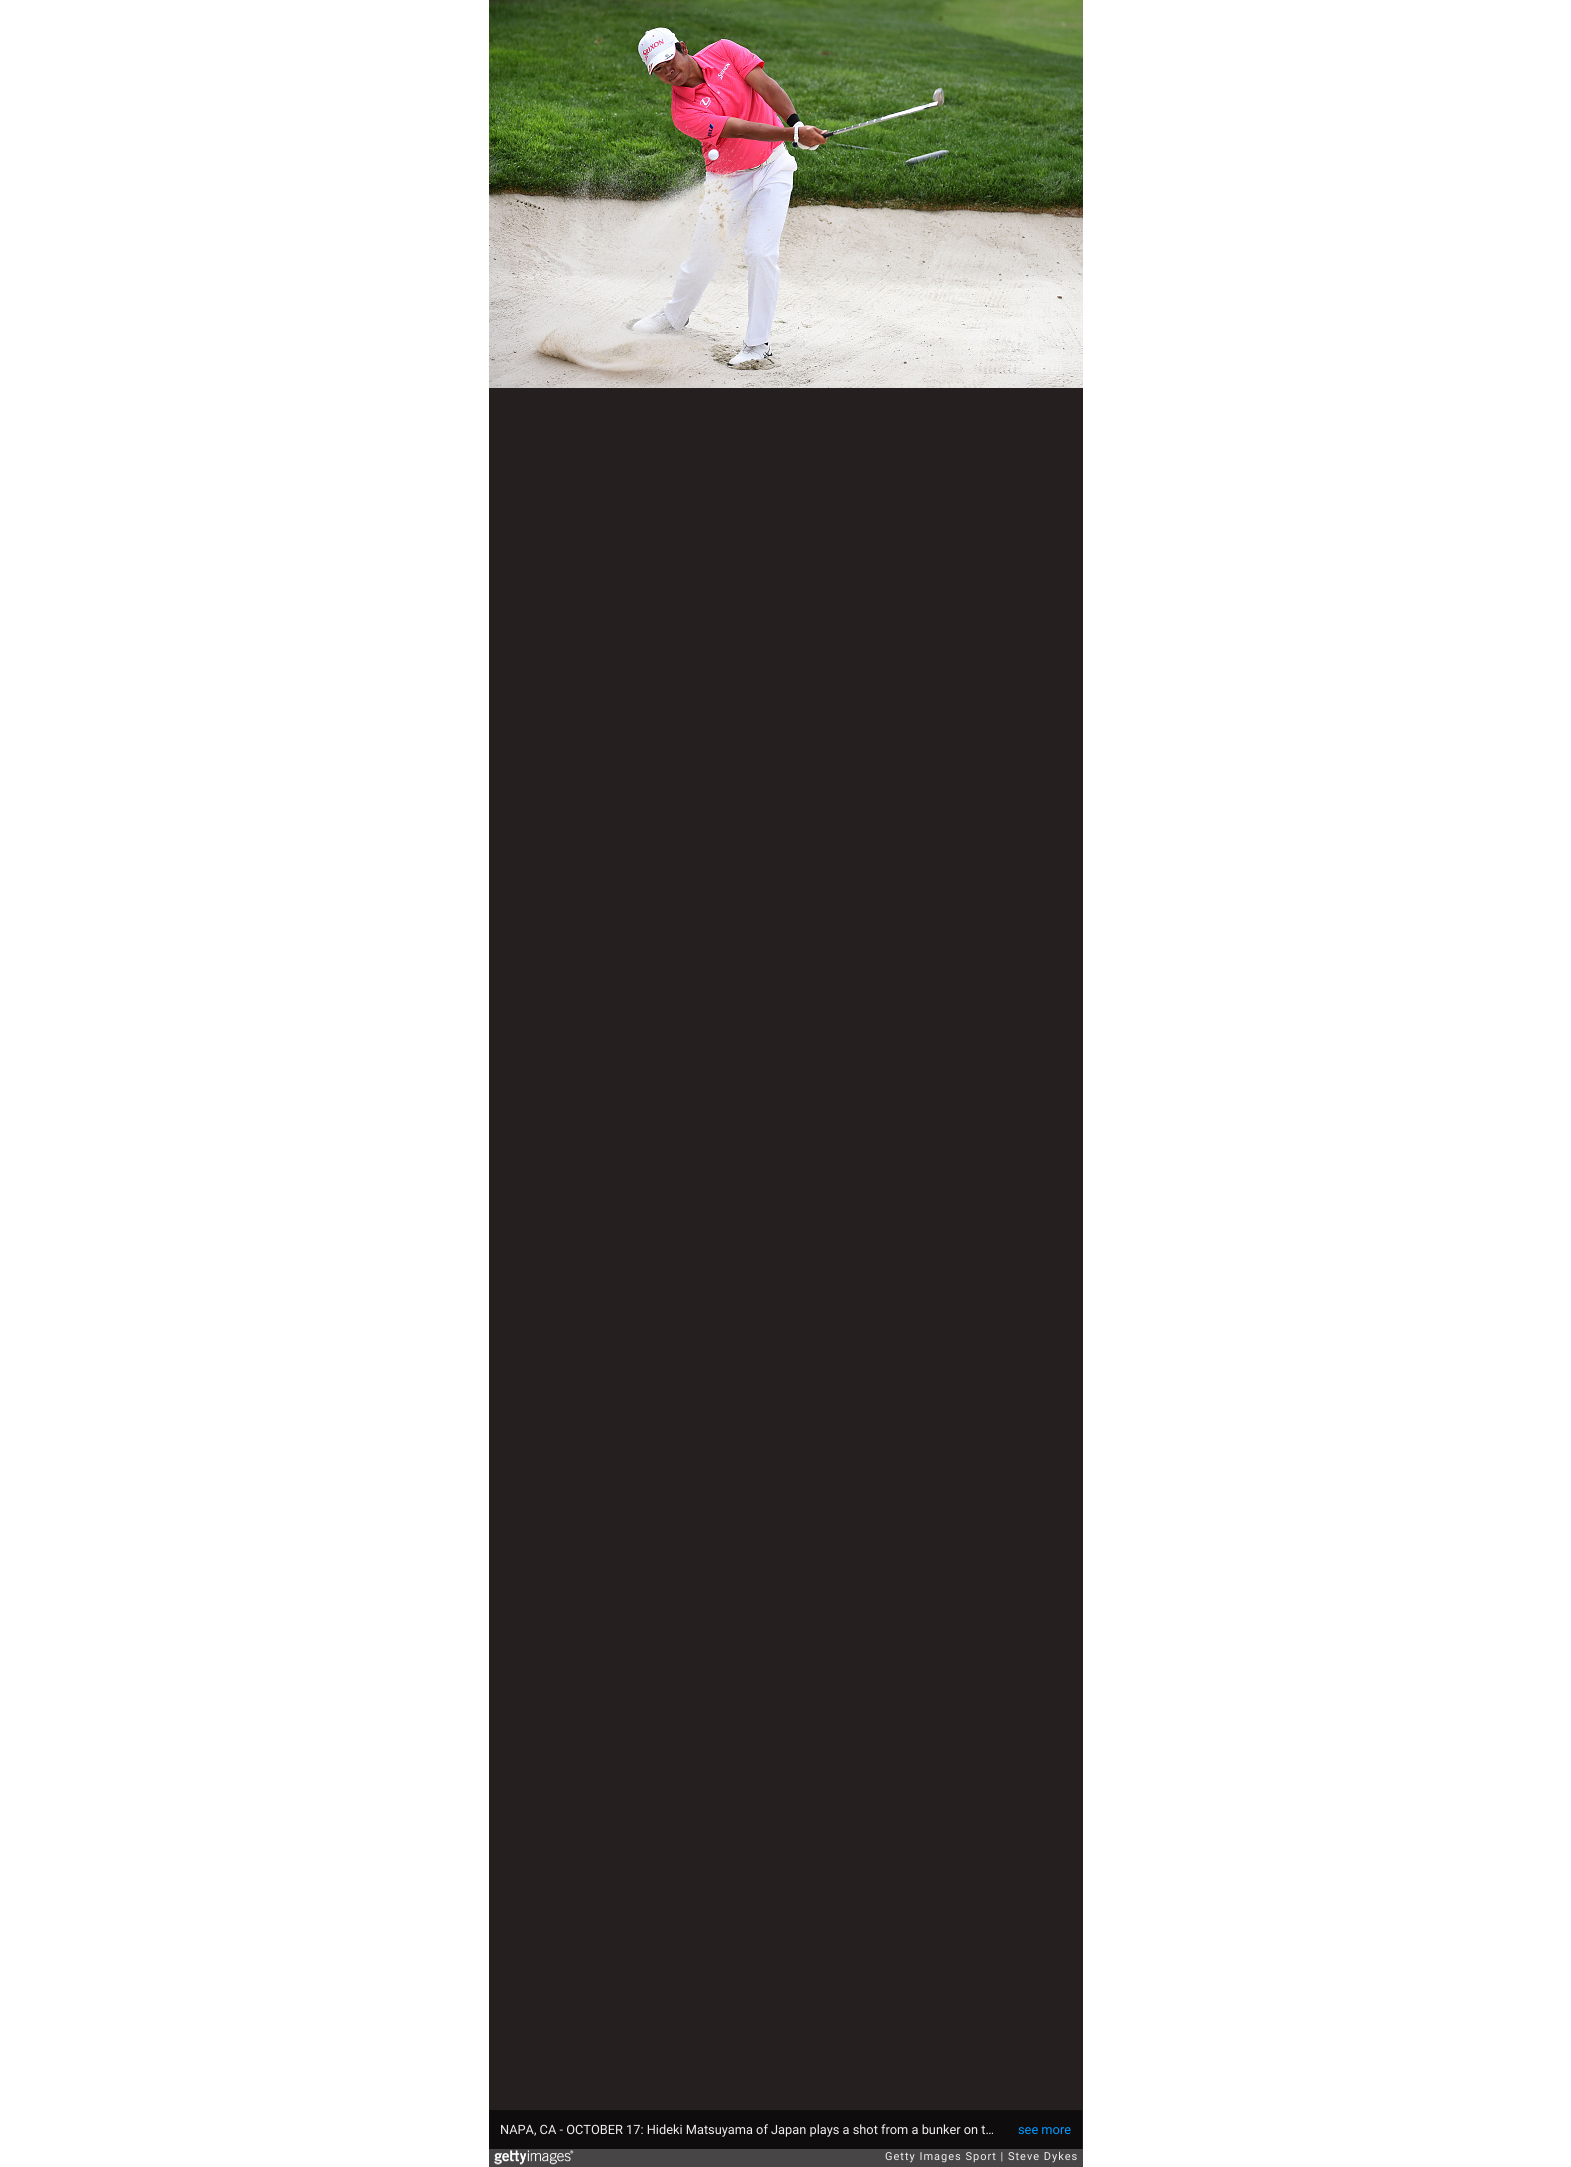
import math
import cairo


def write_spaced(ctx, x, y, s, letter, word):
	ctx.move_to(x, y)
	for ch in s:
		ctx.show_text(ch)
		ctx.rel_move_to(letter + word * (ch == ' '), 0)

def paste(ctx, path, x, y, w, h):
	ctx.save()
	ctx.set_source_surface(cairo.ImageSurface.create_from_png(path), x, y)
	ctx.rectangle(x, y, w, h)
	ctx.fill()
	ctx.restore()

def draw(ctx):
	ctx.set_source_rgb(1, 1, 1)
	ctx.paint()
	ctx.set_source_rgb(0.145, 0.122, 0.125)
	ctx.rectangle(489, 388, 594, 1761)
	ctx.fill()
	paste(ctx, 'media/1.png', 489, 0, 594, 388)
	ctx.set_source_rgb(0.059, 0.047, 0.051)
	ctx.rectangle(489, 2110, 593, 39)
	ctx.fill()
	ctx.select_font_face('Roboto')
	ctx.set_font_size(12.8)
	ctx.set_source_rgb(0.933, 0.933, 0.933)
	ctx.move_to(500, 2134)
	ctx.show_text('NAPA, CA - OCTOBER 17: Hideki Matsuyama of Japan plays a shot from a bunker on t…')
	ctx.set_source_rgb(0, 0.6, 1)
	ctx.move_to(1018, 2134)
	ctx.show_text('see more')
	ctx.set_source_rgb(0.278, 0.271, 0.271)
	ctx.rectangle(489, 2149, 594, 18)
	ctx.fill()
	paste(ctx, 'media/2.png', 494, 2150, 80, 15)
	ctx.set_font_size(11)
	ctx.set_source_rgb(0.933, 0.933, 0.933)
	write_spaced(ctx, 885, 2160, 'Getty Images Sport | Steve Dykes', 1, 0)


surface = cairo.ImageSurface(cairo.FORMAT_RGB24, 1571, 2167)
ctx = cairo.Context(surface)
options = cairo.FontOptions()
options.set_hint_metrics(cairo.HINT_METRICS_OFF)
options.set_hint_style(cairo.HINT_STYLE_NONE)
ctx.set_font_options(options)
ctx.set_miter_limit(4)
draw(ctx)
surface.write_to_png('image.png')
